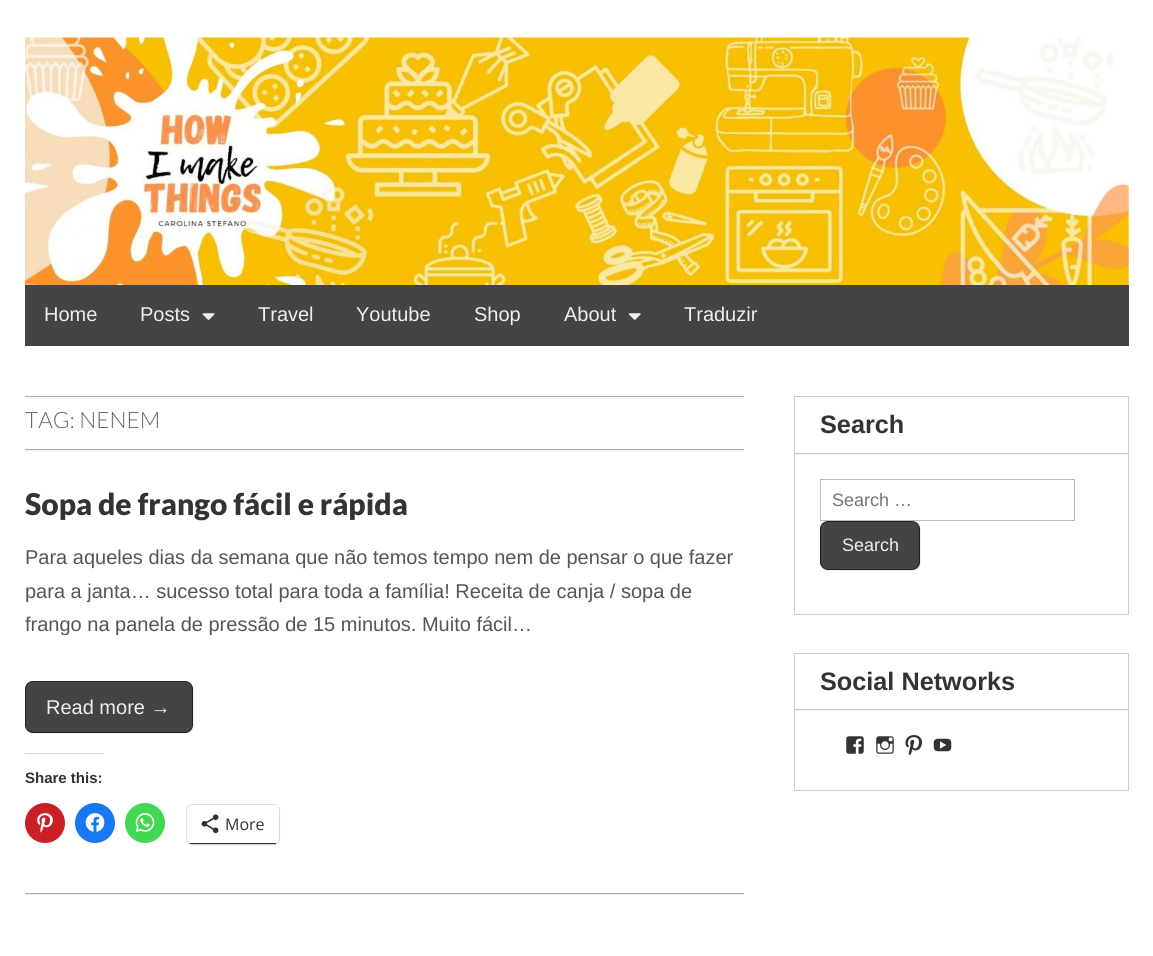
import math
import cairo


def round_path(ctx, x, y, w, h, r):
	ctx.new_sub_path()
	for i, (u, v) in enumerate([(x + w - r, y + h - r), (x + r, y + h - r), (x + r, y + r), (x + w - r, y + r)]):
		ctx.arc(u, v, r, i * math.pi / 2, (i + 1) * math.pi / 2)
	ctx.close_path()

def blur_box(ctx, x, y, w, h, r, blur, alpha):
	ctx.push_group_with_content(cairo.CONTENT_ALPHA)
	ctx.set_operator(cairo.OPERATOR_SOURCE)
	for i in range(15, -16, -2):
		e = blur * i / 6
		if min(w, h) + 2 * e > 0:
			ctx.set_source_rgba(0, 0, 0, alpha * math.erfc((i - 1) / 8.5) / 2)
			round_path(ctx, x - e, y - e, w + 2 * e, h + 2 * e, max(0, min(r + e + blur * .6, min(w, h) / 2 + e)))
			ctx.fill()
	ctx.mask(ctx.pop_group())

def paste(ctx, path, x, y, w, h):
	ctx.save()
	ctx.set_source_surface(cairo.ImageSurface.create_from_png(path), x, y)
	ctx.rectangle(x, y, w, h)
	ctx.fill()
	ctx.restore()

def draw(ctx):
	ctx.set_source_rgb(1, 1, 1)
	ctx.paint()
	paste(ctx, 'media/1.png', 25, 37, 1104, 248)
	ctx.set_source_rgb(0.267, 0.267, 0.267)
	ctx.rectangle(25, 285, 1104, 61)
	ctx.fill()
	ctx.select_font_face('Liberation Sans')
	ctx.set_font_size(20)
	ctx.set_source_rgb(0.933, 0.933, 0.933)
	ctx.move_to(44, 321)
	ctx.show_text('Home')
	ctx.move_to(140, 321)
	ctx.show_text('Posts')
	paste(ctx, 'media/2.png', 202, 313, 13, 7)
	for x, y, s in [
		(258, 321, 'Travel'),
		(356, 321, 'Youtube'),
		(474, 321, 'Shop'),
		(564, 321, 'About'),
	]:
		ctx.move_to(x, y)
		ctx.show_text(s)
	paste(ctx, 'media/3.png', 628, 313, 13, 7)
	ctx.move_to(684, 321)
	ctx.show_text('Traduzir')
	ctx.new_path()
	ctx.move_to(25, 450)
	ctx.line_to(25, 451)
	ctx.line_to(744, 451)
	ctx.line_to(744, 398)
	ctx.line_to(744, 450)
	ctx.close_path()
	ctx.fill()
	ctx.rectangle(25, 398, 719, 1)
	ctx.fill()
	ctx.set_source_rgb(0.667, 0.667, 0.667)
	ctx.rectangle(25, 396, 719, 1)
	ctx.rectangle(25, 449, 719, 1)
	ctx.fill()
	ctx.select_font_face('Lato Light')
	ctx.set_font_size(22.5)
	ctx.set_source_rgb(0.4, 0.4, 0.4)
	ctx.move_to(25, 428)
	ctx.show_text('TAG: NENEM')
	ctx.set_source_rgb(0.933, 0.933, 0.933)
	ctx.new_path()
	ctx.move_to(25, 894)
	ctx.line_to(25, 895)
	ctx.line_to(744, 895)
	ctx.line_to(744, 489)
	ctx.line_to(744, 894)
	ctx.close_path()
	ctx.fill()
	ctx.set_source_rgb(0.667, 0.667, 0.667)
	ctx.rectangle(25, 893, 719, 1)
	ctx.fill()
	ctx.select_font_face('Lato Black')
	ctx.set_font_size(30)
	ctx.set_source_rgb(0.2, 0.2, 0.2)
	ctx.move_to(25, 515)
	ctx.show_text('Sopa de frango fácil e rápida')
	ctx.select_font_face('Liberation Sans')
	ctx.set_font_size(20)
	ctx.set_source_rgb(0.333, 0.333, 0.333)
	for x, y, s in [
		(25, 564, 'Para aqueles dias da semana que não temos tempo nem de pensar o que fazer'),
		(25, 598, 'para a janta… sucesso total para toda a família! Receita de canja / sopa de'),
		(25, 631, 'frango na panela de pressão de 15 minutos. Muito fácil…'),
	]:
		ctx.move_to(x, y)
		ctx.show_text(s)
	ctx.set_source_rgb(0.933, 0.933, 0.933)
	ctx.new_path()
	ctx.move_to(27, 730)
	ctx.curve_to(29, 733, 31, 734, 34, 734)
	ctx.line_to(186, 734)
	ctx.curve_to(190, 734, 194, 730, 194, 726)
	ctx.line_to(194, 691)
	ctx.curve_to(194, 689, 193, 687, 192, 685)
	ctx.line_to(192, 689)
	ctx.line_to(192, 725)
	ctx.curve_to(192, 729, 189, 732, 185, 732)
	ctx.line_to(32, 732)
	ctx.curve_to(31, 732, 29, 732, 27, 730)
	ctx.close_path()
	ctx.fill()
	ctx.set_source_rgb(0.267, 0.267, 0.267)
	round_path(ctx, 25.5, 681.5, 167, 51, 7.5)
	ctx.fill_preserve()
	ctx.set_source_rgb(0.133, 0.133, 0.133)
	ctx.set_line_width(1)
	ctx.stroke()
	ctx.set_source_rgb(0.933, 0.933, 0.933)
	ctx.move_to(46, 714)
	ctx.show_text('Read more →')
	ctx.set_source_rgb(0.863, 0.863, 0.871)
	ctx.rectangle(25, 753, 78, 1)
	ctx.fill()
	ctx.select_font_face('Liberation Sans', cairo.FONT_SLANT_NORMAL, cairo.FONT_WEIGHT_BOLD)
	ctx.set_font_size(15)
	ctx.set_source_rgb(0.2, 0.2, 0.2)
	ctx.move_to(25, 783)
	ctx.show_text('Share this:')
	ctx.set_source_rgb(0.792, 0.122, 0.153)
	ctx.new_path()
	ctx.arc(45, 823, 20, 0, 2 * math.pi)
	ctx.fill()
	paste(ctx, 'media/4.png', 37, 813, 16, 20)
	ctx.set_source_rgb(0.094, 0.467, 0.949)
	ctx.arc(95, 823, 20, 0, 2 * math.pi)
	ctx.fill()
	paste(ctx, 'media/5.png', 85, 813, 20, 19)
	ctx.set_source_rgb(0.263, 0.847, 0.329)
	ctx.arc(145, 823, 20, 0, 2 * math.pi)
	ctx.fill()
	paste(ctx, 'media/6.png', 135, 813, 20, 19)
	round_path(ctx, 186.5, 804.5, 93, 40, 5.5)
	ctx.set_source_rgb(0.878, 0.878, 0.878)
	ctx.stroke()
	ctx.set_source_rgb(0, 0, 0)
	blur_box(ctx, 188, 806, 91, 39, 5, 1, 0.12)
	ctx.set_source_rgb(1, 1, 1)
	round_path(ctx, 188, 805, 91, 39, 5)
	ctx.fill()
	ctx.set_source_rgb(0.173, 0.2, 0.22)
	ctx.rectangle(190, 843, 86, 1)
	ctx.fill()
	paste(ctx, 'media/7.png', 201, 814, 18, 20)
	ctx.select_font_face('Open Sans')
	ctx.set_font_size(16)
	ctx.move_to(225, 830)
	ctx.show_text('More')
	ctx.rectangle(794.5, 396.5, 334, 218)
	ctx.set_source_rgb(0.8, 0.8, 0.8)
	ctx.stroke()
	ctx.set_source_rgb(0.933, 0.933, 0.933)
	ctx.new_path()
	ctx.move_to(795, 454)
	ctx.line_to(795, 455)
	ctx.line_to(1128, 455)
	ctx.line_to(1128, 411)
	ctx.line_to(1128, 454)
	ctx.close_path()
	ctx.fill()
	ctx.set_source_rgb(0.8, 0.8, 0.8)
	ctx.rectangle(795, 453, 333, 1)
	ctx.fill()
	ctx.select_font_face('Liberation Sans', cairo.FONT_SLANT_NORMAL, cairo.FONT_WEIGHT_BOLD)
	ctx.set_font_size(25.25)
	ctx.set_source_rgb(0.2, 0.2, 0.2)
	ctx.move_to(820, 433)
	ctx.show_text('Search')
	ctx.rectangle(820.5, 479.5, 254, 41)
	ctx.set_source_rgb(0.733, 0.733, 0.733)
	ctx.stroke()
	ctx.select_font_face('Liberation Sans')
	ctx.set_font_size(18)
	ctx.set_source_rgb(0.459, 0.459, 0.459)
	ctx.move_to(832, 506)
	ctx.show_text('Search …')
	ctx.set_source_rgb(0.933, 0.933, 0.933)
	ctx.new_path()
	ctx.move_to(824, 569)
	ctx.curve_to(825, 570, 827, 571, 829, 571)
	ctx.line_to(913, 571)
	ctx.curve_to(917, 571, 921, 567, 921, 563)
	ctx.line_to(921, 531)
	ctx.curve_to(921, 529, 921, 528, 920, 527)
	ctx.line_to(920, 551)
	ctx.curve_to(920, 572, 920, 570, 898, 570)
	ctx.line_to(842, 570)
	ctx.curve_to(840, 570, 828, 572, 824, 569)
	ctx.close_path()
	ctx.fill()
	ctx.set_source_rgb(0.267, 0.267, 0.267)
	round_path(ctx, 820.5, 521.5, 99, 48, 7.5)
	ctx.fill_preserve()
	ctx.set_source_rgb(0.133, 0.133, 0.133)
	ctx.stroke()
	ctx.set_source_rgb(0.933, 0.933, 0.933)
	ctx.move_to(842, 551)
	ctx.show_text('Search')
	ctx.rectangle(794.5, 653.5, 334, 137)
	ctx.set_source_rgb(0.8, 0.8, 0.8)
	ctx.stroke()
	ctx.set_source_rgb(0.933, 0.933, 0.933)
	ctx.new_path()
	ctx.move_to(795, 710)
	ctx.line_to(795, 711)
	ctx.line_to(1128, 711)
	ctx.line_to(1128, 668)
	ctx.line_to(1128, 710)
	ctx.close_path()
	ctx.fill()
	ctx.set_source_rgb(0.8, 0.8, 0.8)
	ctx.rectangle(795, 709, 333, 1)
	ctx.fill()
	ctx.select_font_face('Liberation Sans', cairo.FONT_SLANT_NORMAL, cairo.FONT_WEIGHT_BOLD)
	ctx.set_font_size(25.25)
	ctx.set_source_rgb(0.2, 0.2, 0.2)
	ctx.move_to(820, 690)
	ctx.show_text('Social Networks')
	paste(ctx, 'media/8.png', 846, 736, 18, 18)
	paste(ctx, 'media/9.png', 876, 736, 18, 18)
	paste(ctx, 'media/10.png', 905, 735, 17, 20)
	paste(ctx, 'media/11.png', 933, 738, 19, 14)


surface = cairo.ImageSurface(cairo.FORMAT_RGB24, 1153, 956)
ctx = cairo.Context(surface)
options = cairo.FontOptions()
options.set_hint_metrics(cairo.HINT_METRICS_OFF)
options.set_hint_style(cairo.HINT_STYLE_NONE)
ctx.set_font_options(options)
ctx.set_miter_limit(4)
draw(ctx)
surface.write_to_png('image.png')
